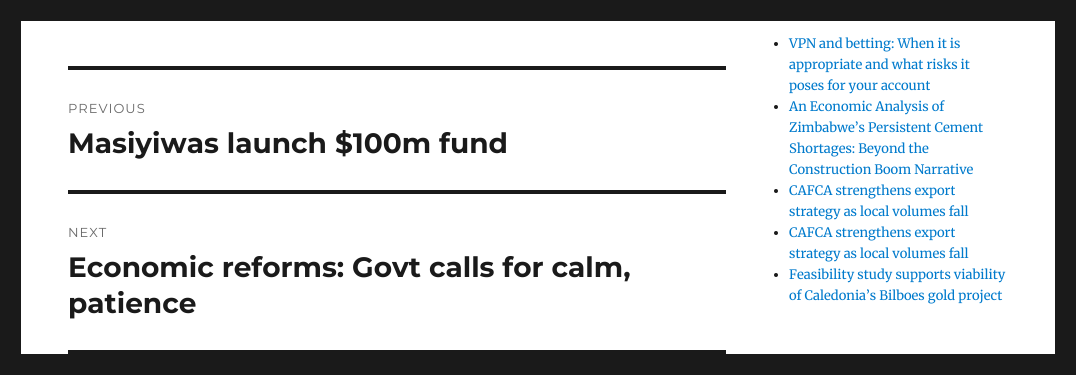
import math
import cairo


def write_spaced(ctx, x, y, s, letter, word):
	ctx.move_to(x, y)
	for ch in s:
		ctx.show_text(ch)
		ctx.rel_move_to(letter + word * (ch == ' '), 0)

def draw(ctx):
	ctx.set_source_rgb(0.102, 0.102, 0.102)
	ctx.paint()
	ctx.set_source_rgb(1, 1, 1)
	ctx.rectangle(21, 21, 1034, 333)
	ctx.fill()
	ctx.set_source_rgb(0.102, 0.102, 0.102)
	ctx.rectangle(68, 66, 658, 4)
	ctx.rectangle(68, 350, 658, 4)
	ctx.fill()
	ctx.select_font_face('Montserrat')
	ctx.set_font_size(13)
	ctx.set_source_rgb(0.408, 0.408, 0.408)
	write_spaced(ctx, 68, 113, 'PREVIOUS', 1, 0)
	ctx.select_font_face('Montserrat', cairo.FONT_SLANT_NORMAL, cairo.FONT_WEIGHT_BOLD)
	ctx.set_font_size(28)
	ctx.set_source_rgb(0.102, 0.102, 0.102)
	ctx.move_to(68, 153)
	ctx.show_text('Masiyiwas launch $100m fund')
	ctx.rectangle(68, 190, 658, 4)
	ctx.fill()
	ctx.select_font_face('Montserrat')
	ctx.set_font_size(13)
	ctx.set_source_rgb(0.408, 0.408, 0.408)
	write_spaced(ctx, 68, 237, 'NEXT', 1, 0)
	ctx.select_font_face('Montserrat', cairo.FONT_SLANT_NORMAL, cairo.FONT_WEIGHT_BOLD)
	ctx.set_font_size(28)
	ctx.set_source_rgb(0.102, 0.102, 0.102)
	ctx.move_to(68, 277)
	ctx.show_text('Economic reforms: Govt calls for calm,')
	ctx.move_to(68, 313)
	ctx.show_text('patience')
	ctx.new_path()
	ctx.arc(776, 44, 2, 0, 2 * math.pi)
	ctx.fill()
	ctx.select_font_face('Merriweather')
	ctx.set_font_size(13)
	ctx.set_source_rgb(0, 0.478, 0.8)
	for x, y, s in [
		(789, 48, 'VPN and betting: When it is'),
		(789, 69, 'appropriate and what risks it'),
		(789, 90, 'poses for your account'),
	]:
		ctx.move_to(x, y)
		ctx.show_text(s)
	ctx.set_source_rgb(0.102, 0.102, 0.102)
	ctx.new_path()
	ctx.arc(776, 107, 2, 0, 2 * math.pi)
	ctx.fill()
	ctx.set_source_rgb(0, 0.478, 0.8)
	for x, y, s in [
		(789, 111, 'An Economic Analysis of'),
		(789, 132, 'Zimbabwe’s Persistent Cement'),
		(789, 153, 'Shortages: Beyond the'),
		(789, 174, 'Construction Boom Narrative'),
	]:
		ctx.move_to(x, y)
		ctx.show_text(s)
	ctx.set_source_rgb(0.102, 0.102, 0.102)
	ctx.new_path()
	ctx.arc(776, 191, 2, 0, 2 * math.pi)
	ctx.fill()
	ctx.set_source_rgb(0, 0.478, 0.8)
	ctx.move_to(789, 195)
	ctx.show_text('CAFCA strengthens export')
	ctx.move_to(789, 216)
	ctx.show_text('strategy as local volumes fall')
	ctx.set_source_rgb(0.102, 0.102, 0.102)
	ctx.new_path()
	ctx.arc(776, 233, 2, 0, 2 * math.pi)
	ctx.fill()
	ctx.set_source_rgb(0, 0.478, 0.8)
	ctx.move_to(789, 237)
	ctx.show_text('CAFCA strengthens export')
	ctx.move_to(789, 258)
	ctx.show_text('strategy as local volumes fall')
	ctx.set_source_rgb(0.102, 0.102, 0.102)
	ctx.new_path()
	ctx.arc(776, 275, 2, 0, 2 * math.pi)
	ctx.fill()
	ctx.set_source_rgb(0, 0.478, 0.8)
	ctx.move_to(789, 279)
	ctx.show_text('Feasibility study supports viability')
	ctx.move_to(789, 300)
	ctx.show_text('of Caledonia’s Bilboes gold project')


surface = cairo.ImageSurface(cairo.FORMAT_RGB24, 1076, 375)
ctx = cairo.Context(surface)
options = cairo.FontOptions()
options.set_hint_metrics(cairo.HINT_METRICS_OFF)
options.set_hint_style(cairo.HINT_STYLE_NONE)
ctx.set_font_options(options)
ctx.set_miter_limit(4)
draw(ctx)
surface.write_to_png('image.png')
